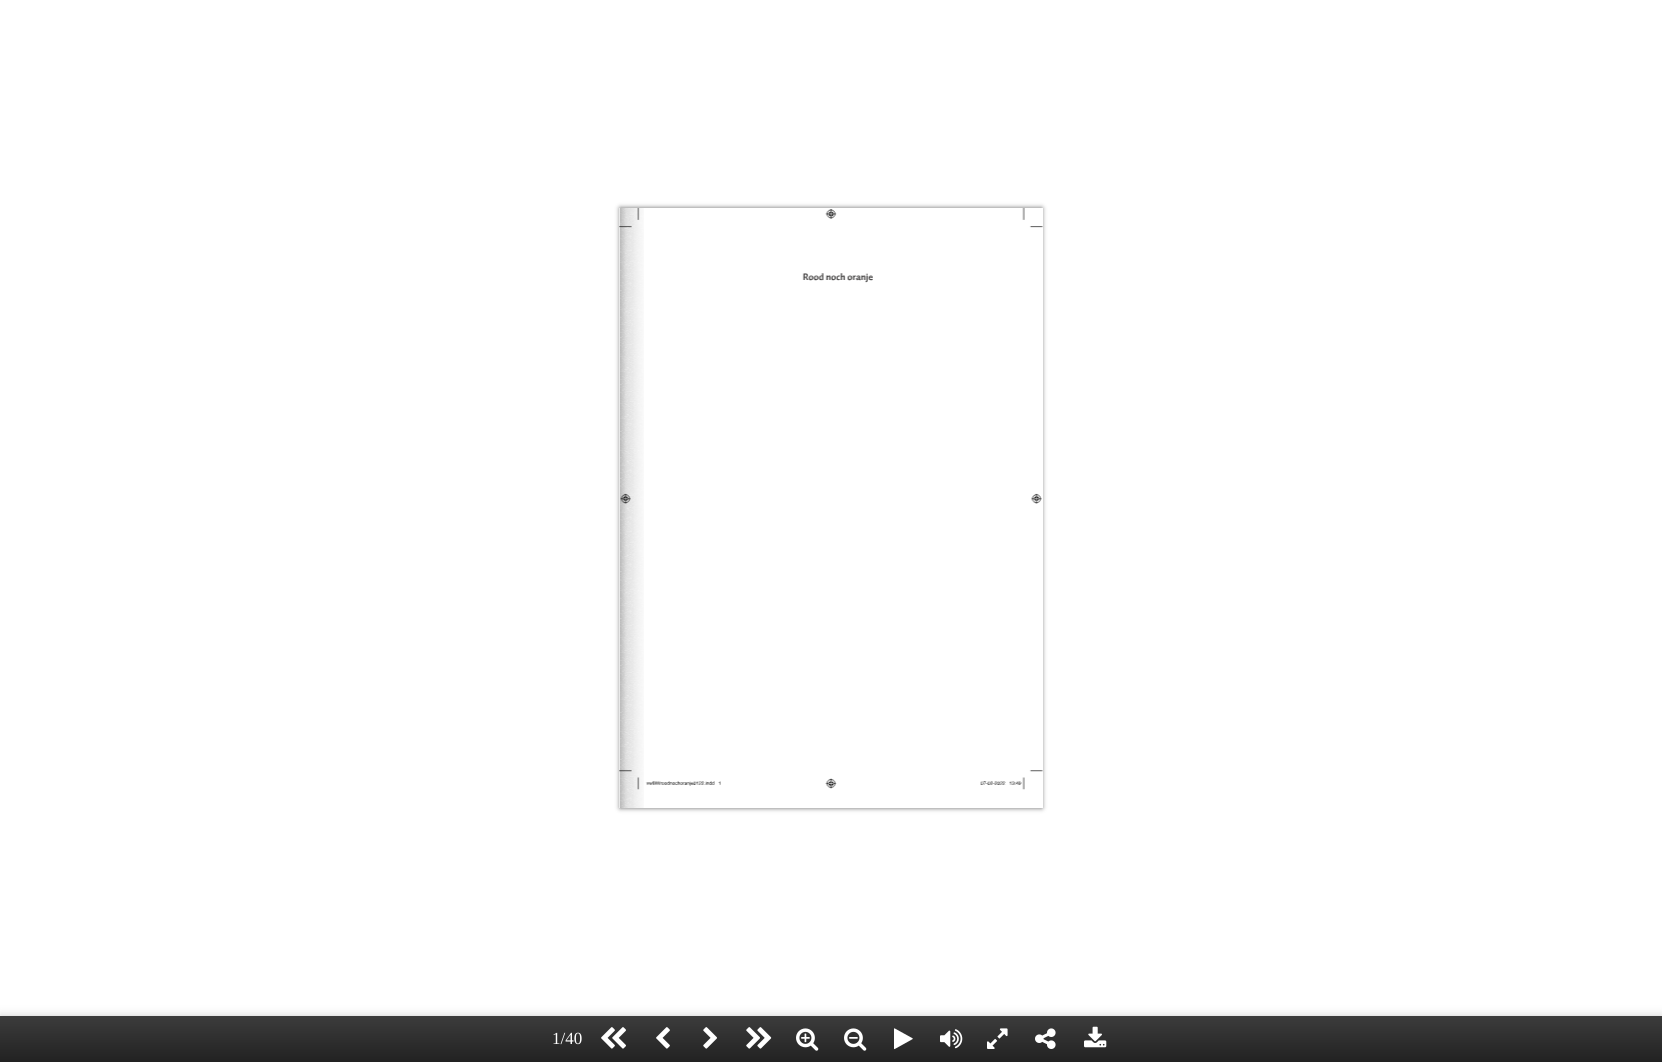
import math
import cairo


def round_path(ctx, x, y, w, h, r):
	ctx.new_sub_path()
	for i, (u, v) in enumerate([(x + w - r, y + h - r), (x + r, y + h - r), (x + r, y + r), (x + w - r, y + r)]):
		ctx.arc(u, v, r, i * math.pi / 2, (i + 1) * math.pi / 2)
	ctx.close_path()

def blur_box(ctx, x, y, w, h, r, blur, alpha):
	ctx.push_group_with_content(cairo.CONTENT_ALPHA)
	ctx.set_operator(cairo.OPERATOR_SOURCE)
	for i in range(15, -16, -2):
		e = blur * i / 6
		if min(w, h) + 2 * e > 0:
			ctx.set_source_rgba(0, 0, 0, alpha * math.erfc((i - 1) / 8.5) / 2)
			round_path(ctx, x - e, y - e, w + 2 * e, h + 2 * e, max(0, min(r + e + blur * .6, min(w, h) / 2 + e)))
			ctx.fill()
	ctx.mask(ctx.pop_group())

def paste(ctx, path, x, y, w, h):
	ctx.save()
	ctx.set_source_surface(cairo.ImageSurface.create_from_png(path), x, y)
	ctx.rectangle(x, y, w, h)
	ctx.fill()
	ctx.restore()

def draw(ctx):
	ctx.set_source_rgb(1, 1, 1)
	ctx.paint()
	ctx.set_source_rgb(0.4, 0.4, 0.4)
	blur_box(ctx, 620, 208, 422, 600, 0, 2.5, 1)
	paste(ctx, 'media/1.png', 619, 208, 424, 600)
	paste(ctx, 'media/2.png', 619, 208, 423, 600)
	paste(ctx, 'media/3.png', 620, 208, 24, 600)
	ctx.set_source_rgb(0, 0, 0)
	blur_box(ctx, 0, 1016, 1662, 46, 0, 5, 0.2)
	gradient = cairo.LinearGradient(831, 1016, 831, 1062)
	gradient.add_color_stop_rgba(0, 0.235, 0.235, 0.235, 1)
	gradient.add_color_stop_rgba(1, 0.133, 0.133, 0.133, 1)
	ctx.set_source(gradient)
	ctx.rectangle(0, 1016, 1662, 46)
	ctx.fill()
	ctx.select_font_face('Liberation Serif')
	ctx.set_font_size(17)
	ctx.set_source_rgb(1, 1, 1)
	ctx.move_to(552, 1044)
	ctx.show_text('1/40')
	paste(ctx, 'media/4.png', 601, 1027, 25, 22)
	paste(ctx, 'media/5.png', 656, 1027, 14, 22)
	paste(ctx, 'media/6.png', 703, 1027, 14, 22)
	paste(ctx, 'media/7.png', 746, 1027, 26, 22)
	paste(ctx, 'media/8.png', 796, 1028, 23, 23)
	paste(ctx, 'media/9.png', 844, 1028, 23, 23)
	paste(ctx, 'media/10.png', 894, 1028, 19, 22)
	paste(ctx, 'media/11.png', 940, 1029, 23, 20)
	paste(ctx, 'media/12.png', 987, 1028, 21, 21)
	paste(ctx, 'media/13.png', 1035, 1028, 21, 21)
	paste(ctx, 'media/14.png', 1084, 1026, 23, 22)


surface = cairo.ImageSurface(cairo.FORMAT_RGB24, 1662, 1062)
ctx = cairo.Context(surface)
options = cairo.FontOptions()
options.set_hint_metrics(cairo.HINT_METRICS_OFF)
options.set_hint_style(cairo.HINT_STYLE_NONE)
ctx.set_font_options(options)
ctx.set_miter_limit(4)
draw(ctx)
surface.write_to_png('image.png')
